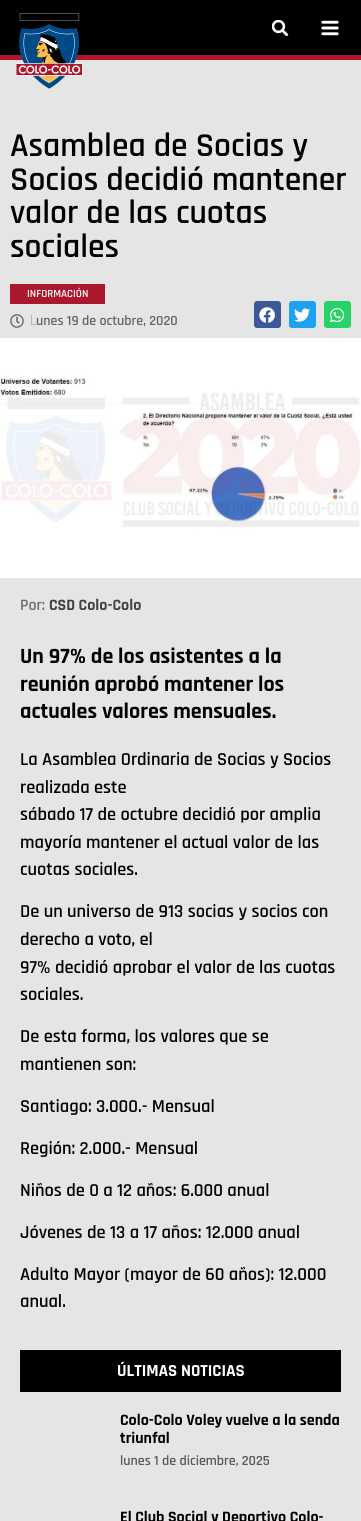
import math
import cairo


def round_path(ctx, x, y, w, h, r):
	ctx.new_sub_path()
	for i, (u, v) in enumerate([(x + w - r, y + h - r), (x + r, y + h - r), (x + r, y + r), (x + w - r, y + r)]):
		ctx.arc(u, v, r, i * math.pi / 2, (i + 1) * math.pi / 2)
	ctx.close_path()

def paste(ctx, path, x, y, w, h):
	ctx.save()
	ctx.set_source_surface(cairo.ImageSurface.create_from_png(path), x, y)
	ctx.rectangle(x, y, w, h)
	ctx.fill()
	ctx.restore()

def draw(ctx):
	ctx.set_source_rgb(0.898, 0.898, 0.898)
	ctx.paint()
	ctx.set_source_rgb(0, 0, 0)
	ctx.rectangle(0, 0, 361, 55)
	ctx.fill()
	ctx.set_source_rgb(0.671, 0.094, 0.176)
	ctx.rectangle(0, 55, 361, 5)
	ctx.fill()
	paste(ctx, 'media/1.png', 16, 13, 67, 76)
	paste(ctx, 'media/2.png', 272, 20, 17, 16)
	paste(ctx, 'media/3.png', 321, 20, 18, 16)
	ctx.select_font_face('Rajdhani SemiBold')
	ctx.set_font_size(33.6)
	ctx.set_source_rgb(0, 0, 0)
	for x, y, s in [
		(10, 156, 'Asamblea de Socias y'),
		(10, 190, 'Socios decidió mantener'),
		(10, 223, 'valor de las cuotas'),
		(10, 257, 'sociales'),
	]:
		ctx.move_to(x, y)
		ctx.show_text(s)
	ctx.set_source_rgb(0.671, 0.094, 0.176)
	ctx.rectangle(10, 284, 95, 20)
	ctx.fill()
	ctx.set_font_size(11)
	ctx.set_source_rgb(1, 1, 1)
	ctx.move_to(27, 297)
	ctx.show_text('INFORMACIÓN')
	paste(ctx, 'media/4.png', 10, 314, 14, 14)
	ctx.select_font_face('Noto Sans Thin')
	ctx.set_font_size(14)
	ctx.set_source_rgb(0.388, 0.388, 0.424)
	ctx.move_to(30, 325)
	ctx.show_text('L')
	ctx.select_font_face('Rajdhani SemiBold')
	ctx.move_to(36, 325)
	ctx.show_text('unes 19 de octubre, 2020')
	ctx.set_source_rgb(0.231, 0.349, 0.596)
	round_path(ctx, 254, 301, 27, 27, 3)
	ctx.fill()
	paste(ctx, 'media/5.png', 259, 307, 16, 16)
	ctx.set_source_rgb(0.114, 0.631, 0.949)
	round_path(ctx, 289, 301, 27, 27, 3)
	ctx.fill()
	paste(ctx, 'media/6.png', 294, 308, 16, 14)
	ctx.set_source_rgb(0.145, 0.827, 0.4)
	round_path(ctx, 324, 301, 27, 27, 3)
	ctx.fill()
	paste(ctx, 'media/7.png', 330, 308, 15, 15)
	paste(ctx, 'media/8.png', 0, 338, 361, 240)
	ctx.set_font_size(16)
	ctx.set_source_rgb(0.42, 0.42, 0.42)
	ctx.move_to(20, 610)
	ctx.show_text('Por:')
	ctx.select_font_face('Rajdhani', cairo.FONT_SLANT_NORMAL, cairo.FONT_WEIGHT_BOLD)
	ctx.set_source_rgb(0.259, 0.259, 0.259)
	ctx.move_to(49, 610)
	ctx.show_text('CSD Colo-Colo')
	ctx.set_font_size(22)
	ctx.set_source_rgb(0, 0, 0)
	for x, y, s in [
		(20, 663, 'Un 97% de los asistentes a la'),
		(20, 691, 'reunión aprobó mantener los'),
		(20, 718, 'actuales valores mensuales.'),
	]:
		ctx.move_to(x, y)
		ctx.show_text(s)
	ctx.select_font_face('Rajdhani SemiBold')
	ctx.set_font_size(18.4)
	for x, y, s in [
		(20, 765, 'La Asamblea Ordinaria de Socias y Socios'),
		(20, 793, 'realizada este'),
		(20, 820, 'sábado 17 de octubre decidió por amplia'),
		(20, 848, 'mayoría mantener el actual valor de las'),
		(20, 875, 'cuotas sociales.'),
		(20, 917, 'De un universo de 913 socias y socios con'),
		(20, 945, 'derecho a voto, el'),
		(20, 973, '97% decidió aprobar el valor de las cuotas'),
		(20, 1000, 'sociales.'),
		(20, 1042, 'De esta forma, los valores que se'),
		(20, 1070, 'mantienen son:'),
		(20, 1112, 'Santiago: 3.000.- Mensual'),
		(20, 1154, 'Región: 2.000.- Mensual'),
		(20, 1196, 'Niños de 0 a 12 años: 6.000 anual'),
		(20, 1238, 'Jóvenes de 13 a 17 años: 12.000 anual'),
		(20, 1280, 'Adulto Mayor (mayor de 60 años): 12.000'),
		(20, 1307, 'anual.'),
	]:
		ctx.move_to(x, y)
		ctx.show_text(s)
	ctx.rectangle(20, 1350, 321, 42)
	ctx.fill()
	ctx.select_font_face('Rajdhani', cairo.FONT_SLANT_NORMAL, cairo.FONT_WEIGHT_BOLD)
	ctx.set_font_size(17)
	ctx.set_source_rgb(1, 1, 1)
	ctx.move_to(117, 1376)
	ctx.show_text('ÚLTIMAS NOTICIAS')
	ctx.set_font_size(16)
	ctx.set_source_rgb(0, 0, 0)
	ctx.move_to(120, 1425)
	ctx.show_text('Colo-Colo Voley vuelve a la senda')
	ctx.move_to(120, 1443)
	ctx.show_text('triunfal')
	ctx.select_font_face('Rajdhani SemiBold')
	ctx.set_font_size(14)
	ctx.set_source_rgb(0.329, 0.349, 0.373)
	ctx.move_to(120, 1465)
	ctx.show_text('lunes 1 de diciembre, 2025')
	ctx.select_font_face('Rajdhani', cairo.FONT_SLANT_NORMAL, cairo.FONT_WEIGHT_BOLD)
	ctx.set_font_size(16)
	ctx.set_source_rgb(0, 0, 0)
	ctx.move_to(120, 1522)
	ctx.show_text('El Club Social y Deportivo Colo-')


surface = cairo.ImageSurface(cairo.FORMAT_RGB24, 361, 1521)
ctx = cairo.Context(surface)
options = cairo.FontOptions()
options.set_hint_metrics(cairo.HINT_METRICS_OFF)
options.set_hint_style(cairo.HINT_STYLE_NONE)
ctx.set_font_options(options)
ctx.set_miter_limit(4)
draw(ctx)
surface.write_to_png('image.png')
